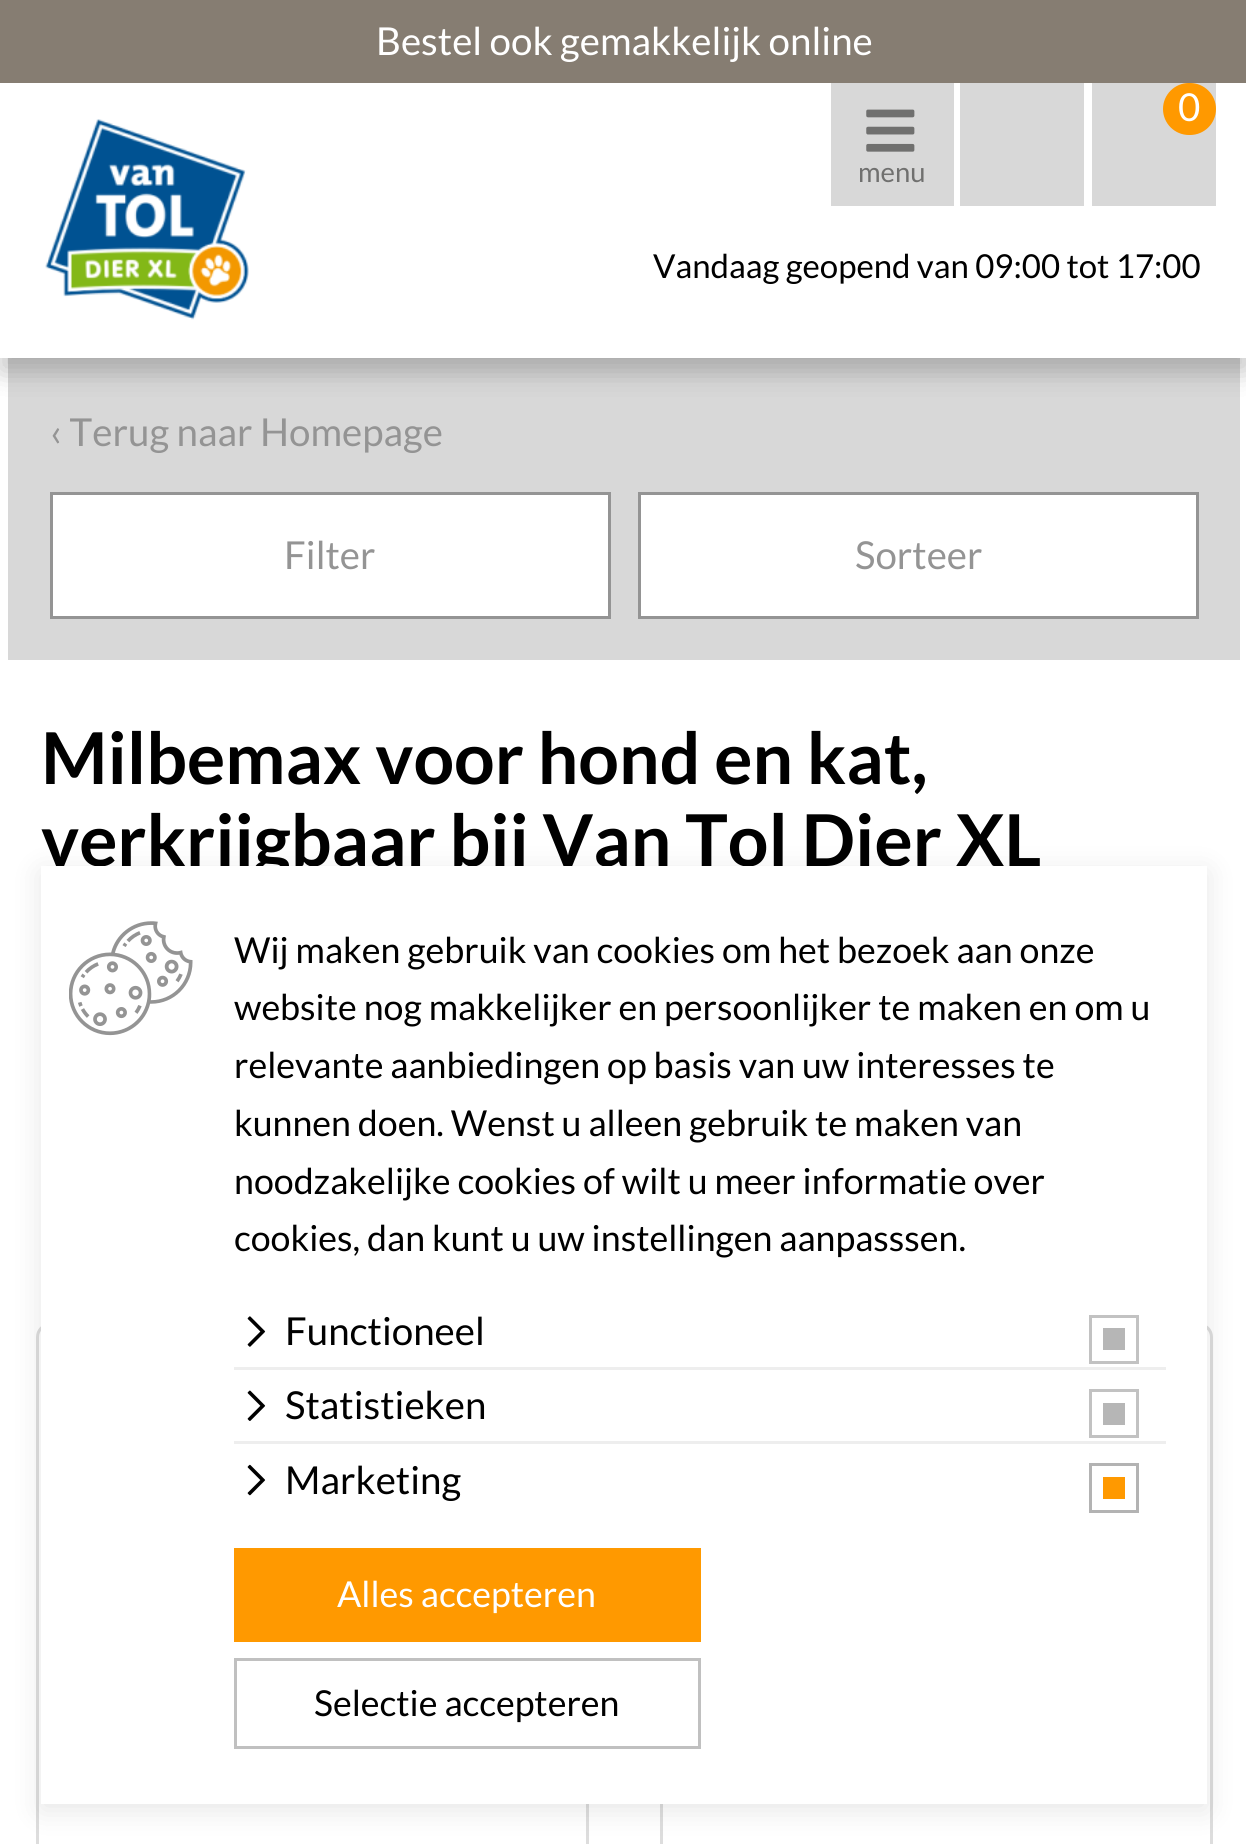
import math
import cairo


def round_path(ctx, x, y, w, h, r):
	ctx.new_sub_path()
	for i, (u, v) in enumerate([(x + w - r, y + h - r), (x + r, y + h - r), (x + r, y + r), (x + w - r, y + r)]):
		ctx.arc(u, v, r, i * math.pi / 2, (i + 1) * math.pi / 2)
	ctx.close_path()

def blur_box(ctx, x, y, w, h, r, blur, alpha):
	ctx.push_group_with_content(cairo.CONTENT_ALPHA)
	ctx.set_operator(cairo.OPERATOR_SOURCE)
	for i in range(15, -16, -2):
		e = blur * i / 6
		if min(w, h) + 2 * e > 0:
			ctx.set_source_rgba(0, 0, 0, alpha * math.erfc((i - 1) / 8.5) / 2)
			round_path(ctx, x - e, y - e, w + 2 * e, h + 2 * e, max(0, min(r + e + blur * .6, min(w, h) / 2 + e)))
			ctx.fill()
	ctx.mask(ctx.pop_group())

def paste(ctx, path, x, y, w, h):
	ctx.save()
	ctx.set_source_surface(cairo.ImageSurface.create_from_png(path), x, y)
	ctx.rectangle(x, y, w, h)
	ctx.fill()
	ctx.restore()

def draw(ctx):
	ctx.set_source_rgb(1, 1, 1)
	ctx.paint()
	ctx.set_source_rgb(0.847, 0.847, 0.847)
	ctx.rectangle(8, 358, 1232, 302)
	ctx.fill()
	ctx.set_source_rgb(0, 0, 0)
	blur_box(ctx, 0, 14, 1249, 357, 0, 14, 0.12)
	ctx.set_source_rgb(1, 1, 1)
	ctx.rectangle(0, 83, 1246, 275)
	ctx.fill()
	ctx.save()
	ctx.set_fill_rule(cairo.FILL_RULE_EVEN_ODD)
	ctx.new_path()
	ctx.move_to(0, 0)
	ctx.line_to(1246, 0)
	ctx.line_to(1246, 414)
	ctx.line_to(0, 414)
	ctx.close_path()
	ctx.move_to(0, 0)
	ctx.line_to(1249, 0)
	ctx.line_to(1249, 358)
	ctx.line_to(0, 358)
	ctx.close_path()
	ctx.clip()
	ctx.set_source_rgb(0, 0, 0)
	blur_box(ctx, 0, 14, 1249, 357, 0, 14, 0.12)
	ctx.restore()
	ctx.set_source_rgb(0.525, 0.49, 0.447)
	ctx.rectangle(0, 0, 1246, 83)
	ctx.fill()
	ctx.select_font_face('Lato')
	ctx.set_font_size(38.5)
	ctx.set_source_rgb(1, 1, 1)
	ctx.move_to(376, 55)
	ctx.show_text('Bestel ook gemakkelijk online')
	paste(ctx, 'media/1.png', 45, 119, 204, 201)
	ctx.set_source_rgb(0.847, 0.847, 0.847)
	ctx.rectangle(960, 83, 124, 123)
	ctx.fill()
	ctx.rectangle(1092, 83, 124, 123)
	ctx.fill()
	ctx.set_source_rgb(1, 0.6, 0)
	round_path(ctx, 1163, 83, 53, 52, 26)
	ctx.fill()
	ctx.set_source_rgb(1, 1, 1)
	ctx.move_to(1178, 121)
	ctx.show_text('0')
	ctx.set_source_rgb(0.847, 0.847, 0.847)
	ctx.rectangle(831, 83, 123, 123)
	ctx.fill()
	paste(ctx, 'media/2.png', 866, 109, 49, 43)
	ctx.set_font_size(27.5)
	ctx.set_source_rgb(0.439, 0.439, 0.435)
	ctx.move_to(858, 182)
	ctx.show_text('menu')
	ctx.set_font_size(33)
	ctx.set_source_rgb(0, 0, 0)
	ctx.move_to(653, 278)
	ctx.show_text('Vandaag geopend van 09:00 tot 17:00')
	ctx.set_font_size(38.5)
	ctx.set_source_rgb(0.58, 0.58, 0.58)
	ctx.move_to(50, 446)
	ctx.show_text('‹ Terug naar Homepage')
	ctx.set_source_rgb(1, 1, 1)
	ctx.rectangle(51.5, 493.5, 558, 124)
	ctx.fill_preserve()
	ctx.set_source_rgb(0.58, 0.58, 0.58)
	ctx.set_line_width(3)
	ctx.stroke()
	ctx.move_to(284, 569)
	ctx.show_text('Filter')
	ctx.set_source_rgb(1, 1, 1)
	ctx.rectangle(639.5, 493.5, 558, 124)
	ctx.fill_preserve()
	ctx.set_source_rgb(0.58, 0.58, 0.58)
	ctx.stroke()
	ctx.move_to(855, 569)
	ctx.show_text('Sorteer')
	ctx.select_font_face('Lato', cairo.FONT_SLANT_NORMAL, cairo.FONT_WEIGHT_BOLD)
	ctx.set_font_size(71.5)
	ctx.set_source_rgb(0, 0, 0)
	ctx.move_to(41, 784)
	ctx.show_text('Milbemax voor hond en kat,')
	ctx.move_to(41, 866)
	ctx.show_text('verkrijgbaar bij Van Tol Dier XL')
	round_path(ctx, 37.5, 1324.5, 550, 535, 12.5)
	ctx.set_source_rgb(0.867, 0.867, 0.867)
	ctx.stroke()
	round_path(ctx, 661.5, 1324.5, 550, 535, 12.5)
	ctx.stroke()
	ctx.set_source_rgb(0, 0, 0)
	blur_box(ctx, 41, 872, 1166, 938, 0, 14, 0.1)
	ctx.set_source_rgb(1, 1, 1)
	ctx.rectangle(41, 866, 1166, 938)
	ctx.fill()
	paste(ctx, 'media/3.png', 69, 921, 124, 115)
	ctx.select_font_face('Lato')
	ctx.set_font_size(35.75)
	ctx.set_source_rgb(0, 0, 0)
	for x, y, s in [
		(234, 963, 'Wij maken gebruik van cookies om het bezoek aan onze'),
		(234, 1020, 'website nog makkelijker en persoonlijker te maken en om u'),
		(234, 1078, 'relevante aanbiedingen op basis van uw interesses te'),
		(234, 1136, 'kunnen doen. Wenst u alleen gebruik te maken van'),
		(234, 1194, 'noodzakelijke cookies of wilt u meer informatie over'),
		(234, 1251, 'cookies, dan kunt u uw instellingen aanpasssen.'),
	]:
		ctx.move_to(x, y)
		ctx.show_text(s)
	paste(ctx, 'media/4.png', 247, 1316, 19, 31)
	ctx.set_font_size(38.5)
	ctx.move_to(285, 1345)
	ctx.show_text('Functioneel')
	ctx.rectangle(1090.5, 1316.5, 47, 46)
	ctx.set_source_rgb(0.761, 0.761, 0.761)
	ctx.stroke()
	ctx.set_source_rgb(0.714, 0.714, 0.714)
	ctx.rectangle(1103, 1328, 22, 22)
	ctx.fill()
	ctx.set_source_rgb(0.933, 0.933, 0.933)
	ctx.rectangle(234, 1367, 932, 3)
	ctx.fill()
	paste(ctx, 'media/5.png', 247, 1390, 19, 31)
	ctx.set_source_rgb(0, 0, 0)
	ctx.move_to(285, 1419)
	ctx.show_text('Statistieken')
	ctx.rectangle(1090.5, 1390.5, 47, 46)
	ctx.set_source_rgb(0.761, 0.761, 0.761)
	ctx.stroke()
	ctx.set_source_rgb(0.714, 0.714, 0.714)
	ctx.rectangle(1103, 1403, 22, 22)
	ctx.fill()
	ctx.set_source_rgb(0.933, 0.933, 0.933)
	ctx.rectangle(234, 1441, 932, 3)
	ctx.fill()
	paste(ctx, 'media/6.png', 247, 1464, 19, 32)
	ctx.set_source_rgb(0, 0, 0)
	ctx.move_to(285, 1494)
	ctx.show_text('Marketing')
	ctx.rectangle(1090.5, 1464.5, 47, 47)
	ctx.set_source_rgb(0.702, 0.702, 0.702)
	ctx.stroke()
	ctx.set_source_rgb(1, 0.6, 0)
	ctx.rectangle(1103, 1477, 22, 22)
	ctx.fill()
	ctx.rectangle(234, 1548, 467, 94)
	ctx.fill()
	ctx.set_font_size(35.75)
	ctx.set_source_rgb(1, 1, 1)
	ctx.move_to(337, 1607)
	ctx.show_text('Alles accepteren')
	ctx.rectangle(235.5, 1659.5, 464, 88)
	ctx.set_source_rgb(0.753, 0.753, 0.753)
	ctx.stroke()
	ctx.set_source_rgb(0, 0, 0)
	ctx.move_to(314, 1716)
	ctx.show_text('Selectie accepteren')


surface = cairo.ImageSurface(cairo.FORMAT_RGB24, 1246, 1844)
ctx = cairo.Context(surface)
options = cairo.FontOptions()
options.set_hint_metrics(cairo.HINT_METRICS_OFF)
options.set_hint_style(cairo.HINT_STYLE_NONE)
ctx.set_font_options(options)
ctx.set_miter_limit(4)
draw(ctx)
surface.write_to_png('image.png')
